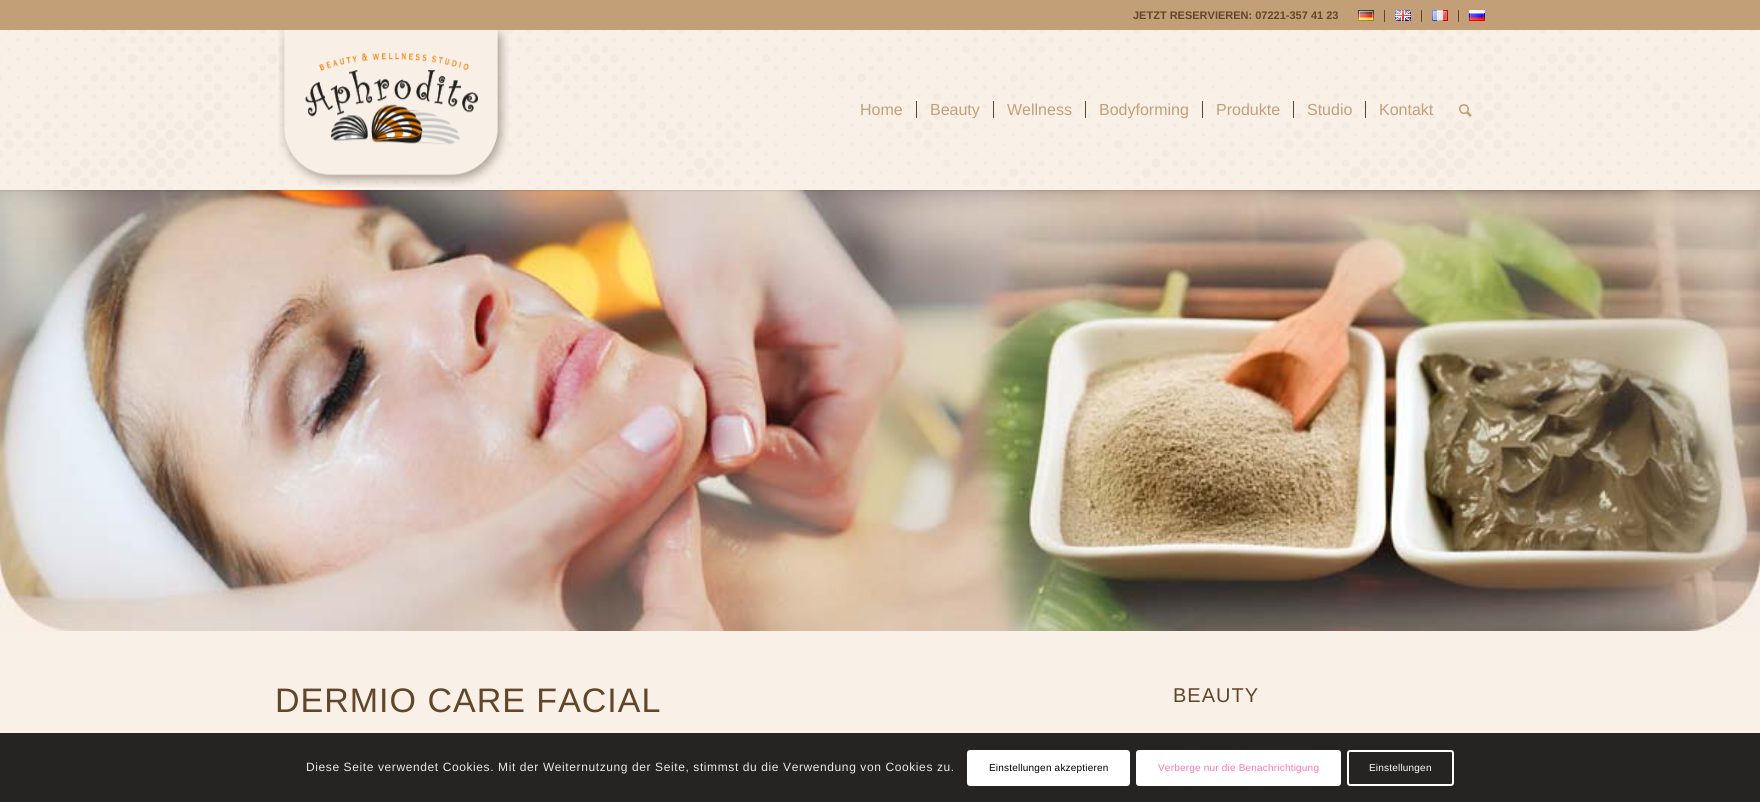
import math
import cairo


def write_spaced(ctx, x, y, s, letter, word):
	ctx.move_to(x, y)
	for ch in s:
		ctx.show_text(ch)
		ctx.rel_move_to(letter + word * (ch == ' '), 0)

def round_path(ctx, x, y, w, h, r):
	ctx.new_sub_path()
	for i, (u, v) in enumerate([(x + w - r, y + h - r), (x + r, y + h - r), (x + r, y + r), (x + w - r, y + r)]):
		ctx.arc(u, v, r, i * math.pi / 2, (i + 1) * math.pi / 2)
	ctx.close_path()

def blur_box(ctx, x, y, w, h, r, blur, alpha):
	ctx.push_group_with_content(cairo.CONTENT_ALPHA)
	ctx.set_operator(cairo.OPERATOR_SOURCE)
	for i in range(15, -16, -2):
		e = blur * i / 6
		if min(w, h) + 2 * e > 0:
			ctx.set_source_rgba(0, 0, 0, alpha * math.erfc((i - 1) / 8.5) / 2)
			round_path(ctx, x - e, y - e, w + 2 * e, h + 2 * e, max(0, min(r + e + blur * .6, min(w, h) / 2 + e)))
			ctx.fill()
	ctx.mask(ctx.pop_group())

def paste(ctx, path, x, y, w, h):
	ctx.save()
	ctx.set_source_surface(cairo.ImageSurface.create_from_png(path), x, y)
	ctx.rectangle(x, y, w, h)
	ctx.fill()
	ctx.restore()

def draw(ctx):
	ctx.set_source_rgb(0.973, 0.941, 0.906)
	ctx.paint()
	paste(ctx, 'media/8.png', 0, 190, 1760, 441)
	ctx.save()
	ctx.rectangle(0, 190, 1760, 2)
	ctx.clip()
	ctx.set_source_rgb(0, 0, 0)
	blur_box(ctx, -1, -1, 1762, 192, 0, 1, 0.1)
	ctx.restore()
	ctx.set_source_rgb(0.765, 0.624, 0.471)
	ctx.rectangle(0, 0, 1760, 30)
	ctx.fill()
	ctx.select_font_face('Liberation Sans', cairo.FONT_SLANT_NORMAL, cairo.FONT_WEIGHT_BOLD)
	ctx.set_font_size(11)
	ctx.set_source_rgb(0.38, 0.275, 0.161)
	ctx.move_to(1133, 19)
	ctx.show_text('JETZT RESERVIEREN: 07221-357 41 23')
	ctx.rectangle(1384, 10, 1, 12)
	ctx.fill()
	paste(ctx, 'media/1.png', 1358, 10, 16, 11)
	ctx.rectangle(1421, 10, 1, 12)
	ctx.fill()
	paste(ctx, 'media/2.png', 1395, 10, 16, 11)
	ctx.rectangle(1458, 10, 1, 12)
	ctx.fill()
	paste(ctx, 'media/3.png', 1432, 10, 16, 11)
	paste(ctx, 'media/4.png', 1469, 10, 16, 11)
	paste(ctx, 'media/5.png', 0, 30, 1760, 159)
	paste(ctx, 'media/6.png', 278, 30, 231, 157)
	ctx.select_font_face('Liberation Sans')
	ctx.set_font_size(16)
	ctx.set_source_rgb(0.765, 0.624, 0.471)
	ctx.move_to(860, 115)
	ctx.show_text('Home')
	ctx.move_to(930, 115)
	ctx.show_text('Beauty')
	ctx.set_source_rgb(0.38, 0.275, 0.161)
	ctx.rectangle(916, 101, 1, 17)
	ctx.fill()
	ctx.set_source_rgb(0.765, 0.624, 0.471)
	ctx.move_to(1007, 115)
	ctx.show_text('Wellness')
	ctx.set_source_rgb(0.38, 0.275, 0.161)
	ctx.rectangle(993, 101, 1, 17)
	ctx.fill()
	ctx.set_source_rgb(0.765, 0.624, 0.471)
	ctx.move_to(1099, 115)
	ctx.show_text('Bodyforming')
	ctx.set_source_rgb(0.38, 0.275, 0.161)
	ctx.rectangle(1085, 101, 1, 17)
	ctx.fill()
	ctx.set_source_rgb(0.765, 0.624, 0.471)
	ctx.move_to(1216, 115)
	ctx.show_text('Produkte')
	ctx.set_source_rgb(0.38, 0.275, 0.161)
	ctx.rectangle(1202, 101, 1, 17)
	ctx.fill()
	ctx.set_source_rgb(0.765, 0.624, 0.471)
	ctx.move_to(1307, 115)
	ctx.show_text('Studio')
	ctx.set_source_rgb(0.38, 0.275, 0.161)
	ctx.rectangle(1293, 101, 1, 17)
	ctx.fill()
	ctx.set_source_rgb(0.765, 0.624, 0.471)
	ctx.move_to(1379, 115)
	ctx.show_text('Kontakt')
	ctx.set_source_rgb(0.38, 0.275, 0.161)
	ctx.rectangle(1365, 101, 1, 17)
	ctx.fill()
	paste(ctx, 'media/7.png', 1459, 104, 13, 13)
	ctx.set_font_size(34)
	write_spaced(ctx, 275, 712, 'DERMIO CARE FACIAL', 1, 0)
	ctx.set_font_size(20)
	write_spaced(ctx, 1173, 702, 'BEAUTY', 1, 0)
	ctx.set_source_rgba(0, 0, 0, 0.85)
	ctx.rectangle(0, 733, 1760, 69)
	ctx.fill()
	ctx.set_font_size(12)
	ctx.set_source_rgb(0.914, 0.914, 0.914)
	write_spaced(ctx, 306, 771, 'Diese Seite verwendet Cookies. Mit der Weiternutzung der Seite, stimmst du die Verwendung von Cookies zu.', 0.6, 0)
	ctx.set_source_rgb(1, 1, 1)
	round_path(ctx, 967, 750, 163, 36, 3)
	ctx.fill()
	ctx.set_font_size(10)
	ctx.set_source_rgb(0, 0, 0)
	write_spaced(ctx, 989, 771, 'Einstellungen akzeptieren', 0.2, 0)
	ctx.set_source_rgb(1, 1, 1)
	round_path(ctx, 1137, 751, 203, 34, 2)
	ctx.fill_preserve()
	ctx.stroke()
	ctx.set_source_rgb(1, 0.459, 0.71)
	write_spaced(ctx, 1158, 771, 'Verberge nur die Benachrichtigung', 0.2, 0)
	round_path(ctx, 1348, 751, 105, 34, 2)
	ctx.set_source_rgb(1, 1, 1)
	ctx.stroke()
	write_spaced(ctx, 1369, 771, 'Einstellungen', 0.2, 0)


surface = cairo.ImageSurface(cairo.FORMAT_RGB24, 1760, 802)
ctx = cairo.Context(surface)
options = cairo.FontOptions()
options.set_hint_metrics(cairo.HINT_METRICS_OFF)
options.set_hint_style(cairo.HINT_STYLE_NONE)
ctx.set_font_options(options)
ctx.set_miter_limit(4)
draw(ctx)
surface.write_to_png('image.png')
